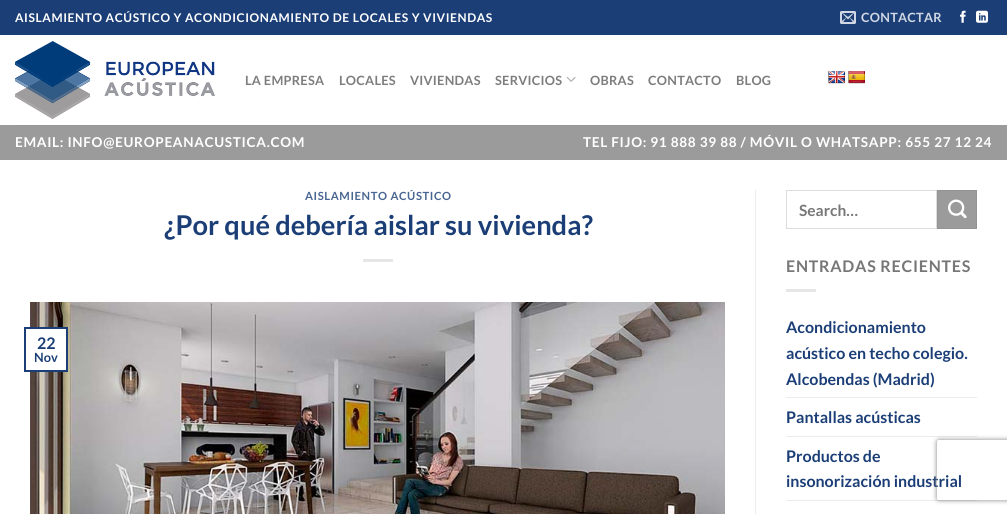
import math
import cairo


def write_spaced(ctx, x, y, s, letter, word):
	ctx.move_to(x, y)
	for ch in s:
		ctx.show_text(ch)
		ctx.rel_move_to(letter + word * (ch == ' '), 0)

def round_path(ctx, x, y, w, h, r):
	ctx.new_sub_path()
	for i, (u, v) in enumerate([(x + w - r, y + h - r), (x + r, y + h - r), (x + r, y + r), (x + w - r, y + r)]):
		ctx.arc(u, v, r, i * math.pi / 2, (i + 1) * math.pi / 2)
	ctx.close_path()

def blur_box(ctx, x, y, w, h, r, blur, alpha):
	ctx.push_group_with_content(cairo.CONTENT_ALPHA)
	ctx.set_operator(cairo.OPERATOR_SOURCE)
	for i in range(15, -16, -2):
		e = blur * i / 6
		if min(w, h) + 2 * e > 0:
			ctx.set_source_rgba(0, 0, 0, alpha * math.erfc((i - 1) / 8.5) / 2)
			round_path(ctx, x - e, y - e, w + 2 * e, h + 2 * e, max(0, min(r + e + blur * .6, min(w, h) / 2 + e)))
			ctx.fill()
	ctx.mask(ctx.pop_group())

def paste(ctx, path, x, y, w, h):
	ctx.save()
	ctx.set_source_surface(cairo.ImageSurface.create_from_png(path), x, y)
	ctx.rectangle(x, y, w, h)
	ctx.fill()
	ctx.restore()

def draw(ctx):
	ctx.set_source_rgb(1, 1, 1)
	ctx.paint()
	ctx.set_source_rgb(0.106, 0.243, 0.467)
	ctx.rectangle(0, 0, 1007, 35)
	ctx.fill()
	ctx.select_font_face('Lato', cairo.FONT_SLANT_NORMAL, cairo.FONT_WEIGHT_BOLD)
	ctx.set_font_size(12)
	ctx.set_source_rgb(1, 1, 1)
	write_spaced(ctx, 15, 22, 'AISLAMIENTO ACÚSTICO Y ACONDICIONAMIENTO DE LOCALES Y VIVIENDAS', 0.6, 0)
	paste(ctx, 'media/1.png', 840, 11, 16, 13)
	ctx.set_font_size(12.75)
	ctx.set_source_rgb(0.82, 0.847, 0.894)
	write_spaced(ctx, 861, 22, 'CONTACTAR', 0.25, 0)
	paste(ctx, 'media/2.png', 960, 10, 6, 13)
	paste(ctx, 'media/3.png', 976, 10, 12, 13)
	paste(ctx, 'media/4.png', 15, 41, 200, 78)
	ctx.set_source_rgb(0.49, 0.49, 0.49)
	for x, y, s in [
		(245, 85, 'LA EMPRESA'),
		(339, 85, 'LOCALES'),
		(410, 85, 'VIVIENDAS'),
		(495, 85, 'SERVICIOS'),
	]:
		write_spaced(ctx, x, y, s, 0.25, 0)
	paste(ctx, 'media/5.png', 566, 76, 10, 6)
	for x, y, s in [
		(590, 85, 'OBRAS'),
		(648, 85, 'CONTACTO'),
		(736, 85, 'BLOG'),
	]:
		write_spaced(ctx, x, y, s, 0.25, 0)
	paste(ctx, 'media/6.png', 828, 71, 17, 13)
	paste(ctx, 'media/7.png', 848, 71, 17, 13)
	ctx.set_source_rgb(0.612, 0.608, 0.608)
	ctx.rectangle(0, 125, 1007, 35)
	ctx.fill()
	ctx.set_source_rgb(0.596, 0.592, 0.592)
	ctx.rectangle(15, 125, 977, 1)
	ctx.fill()
	ctx.set_font_size(13.6)
	ctx.set_source_rgb(1, 1, 1)
	write_spaced(ctx, 15, 147, 'EMAIL: INFO@EUROPEANACUSTICA.COM', 0.68, 0)
	write_spaced(ctx, 583, 147, 'TEL FIJO: 91 888 39 88 / MÓVIL O WHATSAPP: 655 27 12 24', 0.68, 0)
	ctx.set_font_size(11.25)
	ctx.set_source_rgb(0.286, 0.396, 0.573)
	write_spaced(ctx, 305, 200, 'AISLAMIENTO ACÚSTICO', 0.6, 0)
	ctx.set_font_size(27.25)
	ctx.set_source_rgb(0.106, 0.243, 0.467)
	ctx.move_to(164, 235)
	ctx.show_text('¿Por qué debería aislar su vivienda?')
	ctx.set_source_rgb(0.902, 0.902, 0.902)
	ctx.rectangle(363, 259, 30, 3)
	ctx.fill()
	paste(ctx, 'media/8.png', 30, 302, 695, 212)
	ctx.set_source_rgb(1, 1, 1)
	ctx.rectangle(30, 329, 36, 41)
	ctx.fill()
	ctx.rectangle(25, 328, 42, 43)
	ctx.set_source_rgb(0.106, 0.243, 0.467)
	ctx.stroke()
	ctx.set_font_size(16)
	ctx.move_to(37, 349)
	ctx.show_text('22')
	ctx.set_font_size(12.75)
	ctx.move_to(34, 362)
	ctx.show_text('Nov')
	ctx.set_source_rgb(0.925, 0.925, 0.925)
	ctx.rectangle(755, 190, 1, 324)
	ctx.fill()
	ctx.rectangle(786.5, 190.5, 150, 38)
	ctx.set_source_rgb(0.867, 0.867, 0.867)
	ctx.set_line_width(1)
	ctx.stroke()
	ctx.set_font_size(15.5)
	ctx.set_source_rgb(0.467, 0.467, 0.467)
	ctx.move_to(799, 216)
	ctx.show_text('Search…')
	ctx.set_source_rgb(0.612, 0.608, 0.608)
	ctx.rectangle(937.5, 190.5, 39, 38)
	ctx.fill_preserve()
	ctx.set_source_rgb(0.58, 0.576, 0.576)
	ctx.stroke()
	paste(ctx, 'media/9.png', 948, 199, 19, 20)
	ctx.set_font_size(16)
	ctx.set_source_rgb(0.467, 0.467, 0.467)
	write_spaced(ctx, 786, 272, 'ENTRADAS RECIENTES', 0.75, 0)
	ctx.set_source_rgb(0.902, 0.902, 0.902)
	ctx.rectangle(786, 289, 30, 3)
	ctx.fill()
	ctx.set_source_rgb(0.106, 0.243, 0.467)
	for x, y, s in [
		(786, 333, 'Acondicionamiento'),
		(786, 359, 'acústico en techo colegio.'),
		(786, 385, 'Alcobendas (Madrid)'),
	]:
		ctx.move_to(x, y)
		ctx.show_text(s)
	ctx.set_source_rgb(0.925, 0.925, 0.925)
	ctx.rectangle(786, 397, 191, 1)
	ctx.fill()
	ctx.set_source_rgb(0.106, 0.243, 0.467)
	ctx.move_to(786, 423)
	ctx.show_text('Pantallas acústicas')
	ctx.set_source_rgb(0.925, 0.925, 0.925)
	ctx.rectangle(786, 436, 191, 1)
	ctx.fill()
	ctx.set_source_rgb(0.106, 0.243, 0.467)
	ctx.move_to(786, 462)
	ctx.show_text('Productos de')
	ctx.move_to(786, 487)
	ctx.show_text('insonorización industrial')
	ctx.set_source_rgb(0.925, 0.925, 0.925)
	ctx.rectangle(786, 500, 191, 1)
	ctx.fill()
	ctx.save()
	ctx.set_fill_rule(cairo.FILL_RULE_EVEN_ODD)
	ctx.new_path()
	ctx.move_to(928, 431)
	ctx.line_to(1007, 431)
	ctx.line_to(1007, 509)
	ctx.line_to(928, 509)
	ctx.close_path()
	ctx.move_to(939, 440)
	ctx.line_to(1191, 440)
	ctx.curve_to(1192, 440, 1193, 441, 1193, 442)
	ctx.line_to(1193, 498)
	ctx.curve_to(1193, 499, 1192, 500, 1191, 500)
	ctx.line_to(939, 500)
	ctx.curve_to(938, 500, 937, 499, 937, 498)
	ctx.line_to(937, 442)
	ctx.curve_to(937, 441, 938, 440, 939, 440)
	ctx.close_path()
	ctx.clip()
	ctx.set_source_rgb(0.502, 0.502, 0.502)
	blur_box(ctx, 937, 440, 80, 60, 2, 2.5, 1)
	ctx.restore()


surface = cairo.ImageSurface(cairo.FORMAT_RGB24, 1007, 514)
ctx = cairo.Context(surface)
options = cairo.FontOptions()
options.set_hint_metrics(cairo.HINT_METRICS_OFF)
options.set_hint_style(cairo.HINT_STYLE_NONE)
ctx.set_font_options(options)
ctx.set_miter_limit(4)
draw(ctx)
surface.write_to_png('image.png')
